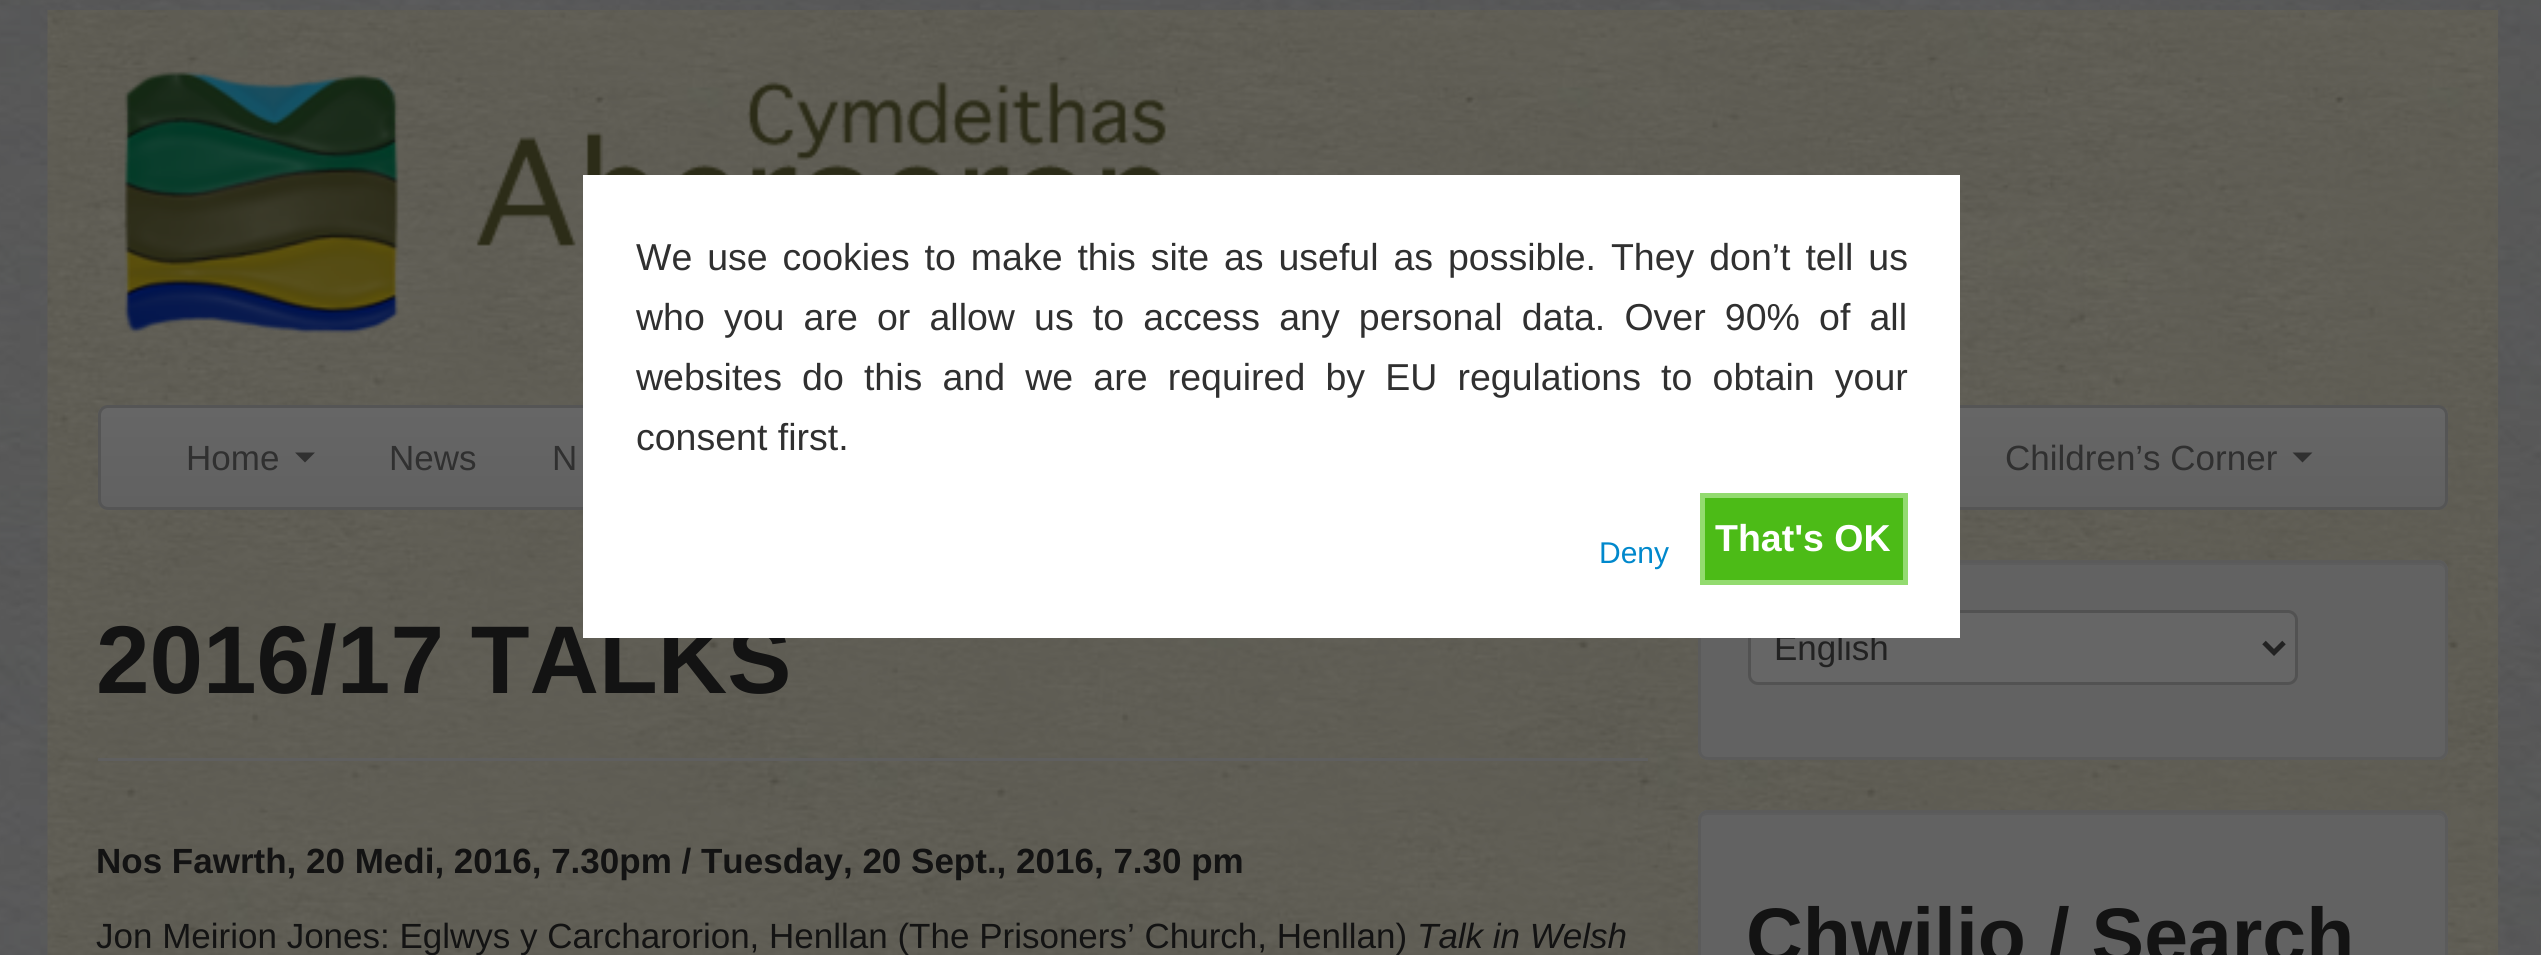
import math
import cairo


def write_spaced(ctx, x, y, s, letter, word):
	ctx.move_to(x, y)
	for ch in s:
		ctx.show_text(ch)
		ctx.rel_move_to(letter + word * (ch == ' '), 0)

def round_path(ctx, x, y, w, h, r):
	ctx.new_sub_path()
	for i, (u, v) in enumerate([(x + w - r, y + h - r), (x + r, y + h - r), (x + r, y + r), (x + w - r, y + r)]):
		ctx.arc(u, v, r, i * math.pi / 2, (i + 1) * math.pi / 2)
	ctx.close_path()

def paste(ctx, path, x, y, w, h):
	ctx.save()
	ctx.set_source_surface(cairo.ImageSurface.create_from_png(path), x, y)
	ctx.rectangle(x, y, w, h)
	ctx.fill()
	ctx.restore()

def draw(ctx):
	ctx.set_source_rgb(1, 1, 1)
	ctx.paint()
	paste(ctx, 'media/1.png', 0, 0, 2541, 955)
	ctx.set_source_rgb(0.376, 0.369, 0.333)
	ctx.rectangle(2497, 10, 1, 945)
	ctx.fill()
	paste(ctx, 'media/2.png', 47, 10, 2451, 945)
	paste(ctx, 'media/3.png', 124, 71, 1042, 263)
	ctx.save()
	round_path(ctx, 98, 405, 2350, 105, 10)
	ctx.clip()
	gradient = cairo.LinearGradient(1273, 407, 1273, 508)
	gradient.add_color_stop_rgba(0, 0.4, 0.4, 0.4, 1)
	gradient.add_color_stop_rgba(1, 0.38, 0.38, 0.38, 1)
	ctx.set_source(gradient)
	ctx.rectangle(98, 408, 2350, 100)
	ctx.fill()
	ctx.restore()
	round_path(ctx, 99.5, 406.5, 2347, 102, 8.5)
	ctx.set_source_rgb(0.333, 0.333, 0.333)
	ctx.set_line_width(3)
	ctx.stroke()
	ctx.select_font_face('Liberation Sans', cairo.FONT_SLANT_NORMAL, cairo.FONT_WEIGHT_BOLD)
	ctx.set_font_size(96.25)
	ctx.set_source_rgb(0.078, 0.078, 0.078)
	ctx.move_to(96, 693)
	ctx.show_text('2016/17 TALKS')
	ctx.set_source_rgb(0.384, 0.384, 0.384)
	round_path(ctx, 1698, 560, 750, 200, 10)
	ctx.fill()
	ctx.set_source_rgb(0.365, 0.365, 0.365)
	ctx.new_path()
	ctx.move_to(1708, 565)
	ctx.line_to(2438, 565)
	ctx.curve_to(2442, 565, 2445, 568, 2445, 572)
	ctx.curve_to(2445, 567, 2442, 563, 2437, 563)
	ctx.line_to(1708, 563)
	ctx.curve_to(1703, 563, 1700, 567, 1700, 572)
	ctx.curve_to(1700, 568, 1703, 565, 1708, 565)
	ctx.close_path()
	ctx.fill()
	round_path(ctx, 1699.5, 561.5, 747, 197, 8.5)
	ctx.set_source_rgb(0.357, 0.357, 0.357)
	ctx.stroke()
	ctx.set_source_rgb(0.4, 0.4, 0.4)
	round_path(ctx, 1749.5, 611.5, 547, 72, 8.5)
	ctx.fill_preserve()
	ctx.set_source_rgb(0.322, 0.322, 0.322)
	ctx.stroke()
	ctx.select_font_face('Liberation Sans')
	ctx.set_font_size(35)
	ctx.set_source_rgb(0.133, 0.133, 0.133)
	ctx.move_to(1774, 660)
	ctx.show_text('English')
	ctx.set_source_rgb(1, 1, 1)
	ctx.rectangle(583, 175, 1377, 463)
	ctx.fill()
	ctx.set_font_size(37.5)
	ctx.set_source_rgb(0.188, 0.188, 0.188)
	write_spaced(ctx, 636, 270, 'We use cookies to make this site as useful as possible. They don’t tell us', 0, 4.5)
	write_spaced(ctx, 636, 330, 'who you are or allow us to access any personal data. Over 90% of all', 0, 8.75)
	write_spaced(ctx, 636, 390, 'websites do this and we are required by EU regulations to obtain your', 0, 9.75)
	ctx.move_to(636, 450)
	ctx.show_text('consent first.')
	ctx.set_source_rgb(0.298, 0.733, 0.09)
	ctx.rectangle(1702.5, 495.5, 203, 87)
	ctx.fill_preserve()
	ctx.set_source_rgb(0.576, 0.859, 0.439)
	ctx.set_line_width(5)
	ctx.stroke()
	ctx.select_font_face('Liberation Sans', cairo.FONT_SLANT_NORMAL, cairo.FONT_WEIGHT_BOLD)
	ctx.set_source_rgb(1, 1, 1)
	ctx.move_to(1715, 551)
	ctx.show_text('That\'s OK')
	ctx.select_font_face('Liberation Sans')
	ctx.set_font_size(30)
	ctx.set_source_rgb(0, 0.533, 0.8)
	ctx.move_to(1599, 563)
	ctx.show_text('Deny')
	ctx.set_font_size(35)
	ctx.set_source_rgb(0.188, 0.188, 0.188)
	ctx.move_to(186, 470)
	ctx.show_text('Home')
	ctx.new_path()
	ctx.move_to(295, 452.5)
	ctx.line_to(315, 452.5)
	ctx.line_to(305, 462.5)
	ctx.close_path()
	ctx.fill()
	for x, y, s in [
		(389, 470, 'News'),
		(552, 470, 'N'),
		(2005, 470, 'Children’s Corner'),
	]:
		ctx.move_to(x, y)
		ctx.show_text(s)
	ctx.new_path()
	ctx.move_to(2292.5, 452.5)
	ctx.line_to(2312.5, 452.5)
	ctx.line_to(2302.5, 462.5)
	ctx.close_path()
	ctx.fill()
	ctx.set_source_rgb(0.373, 0.373, 0.373)
	ctx.rectangle(98, 758, 1550, 3)
	ctx.fill()
	ctx.select_font_face('Liberation Sans', cairo.FONT_SLANT_NORMAL, cairo.FONT_WEIGHT_BOLD)
	ctx.set_source_rgb(0.078, 0.078, 0.078)
	ctx.move_to(96, 873)
	ctx.show_text('Nos Fawrth, 20 Medi, 2016, 7.30pm / Tuesday, 20 Sept., 2016, 7.30 pm')
	ctx.select_font_face('Liberation Sans')
	ctx.move_to(96, 948)
	ctx.show_text('Jon Meirion Jones: Eglwys y Carcharorion, Henllan (The Prisoners’ Church, Henllan)')
	ctx.select_font_face('Liberation Sans', cairo.FONT_SLANT_ITALIC)
	ctx.move_to(1417, 948)
	ctx.show_text('Talk in Welsh')
	ctx.new_path()
	ctx.move_to(2264, 642.5)
	ctx.line_to(2274, 652.5)
	ctx.line_to(2284, 642.5)
	ctx.set_source_rgb(0.133, 0.133, 0.133)
	ctx.stroke()
	ctx.set_source_rgb(0.384, 0.384, 0.384)
	round_path(ctx, 1698, 810, 750, 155, 10)
	ctx.fill()
	ctx.set_source_rgb(0.365, 0.365, 0.365)
	ctx.new_path()
	ctx.move_to(1708, 815)
	ctx.line_to(2438, 815)
	ctx.curve_to(2442, 815, 2445, 818, 2445, 822)
	ctx.curve_to(2445, 817, 2442, 813, 2437, 813)
	ctx.line_to(1708, 813)
	ctx.curve_to(1703, 813, 1700, 817, 1700, 822)
	ctx.curve_to(1700, 818, 1703, 815, 1708, 815)
	ctx.close_path()
	ctx.fill()
	round_path(ctx, 1699.5, 811.5, 747, 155, 8.5)
	ctx.set_source_rgb(0.357, 0.357, 0.357)
	ctx.set_line_width(3)
	ctx.stroke()
	ctx.select_font_face('Liberation Sans', cairo.FONT_SLANT_NORMAL, cairo.FONT_WEIGHT_BOLD)
	ctx.set_font_size(78.75)
	ctx.set_source_rgb(0.078, 0.078, 0.078)
	ctx.move_to(1746, 963)
	ctx.show_text('Chwilio / Search')


surface = cairo.ImageSurface(cairo.FORMAT_RGB24, 2541, 955)
ctx = cairo.Context(surface)
options = cairo.FontOptions()
options.set_hint_metrics(cairo.HINT_METRICS_OFF)
options.set_hint_style(cairo.HINT_STYLE_NONE)
ctx.set_font_options(options)
ctx.set_miter_limit(4)
draw(ctx)
surface.write_to_png('image.png')
